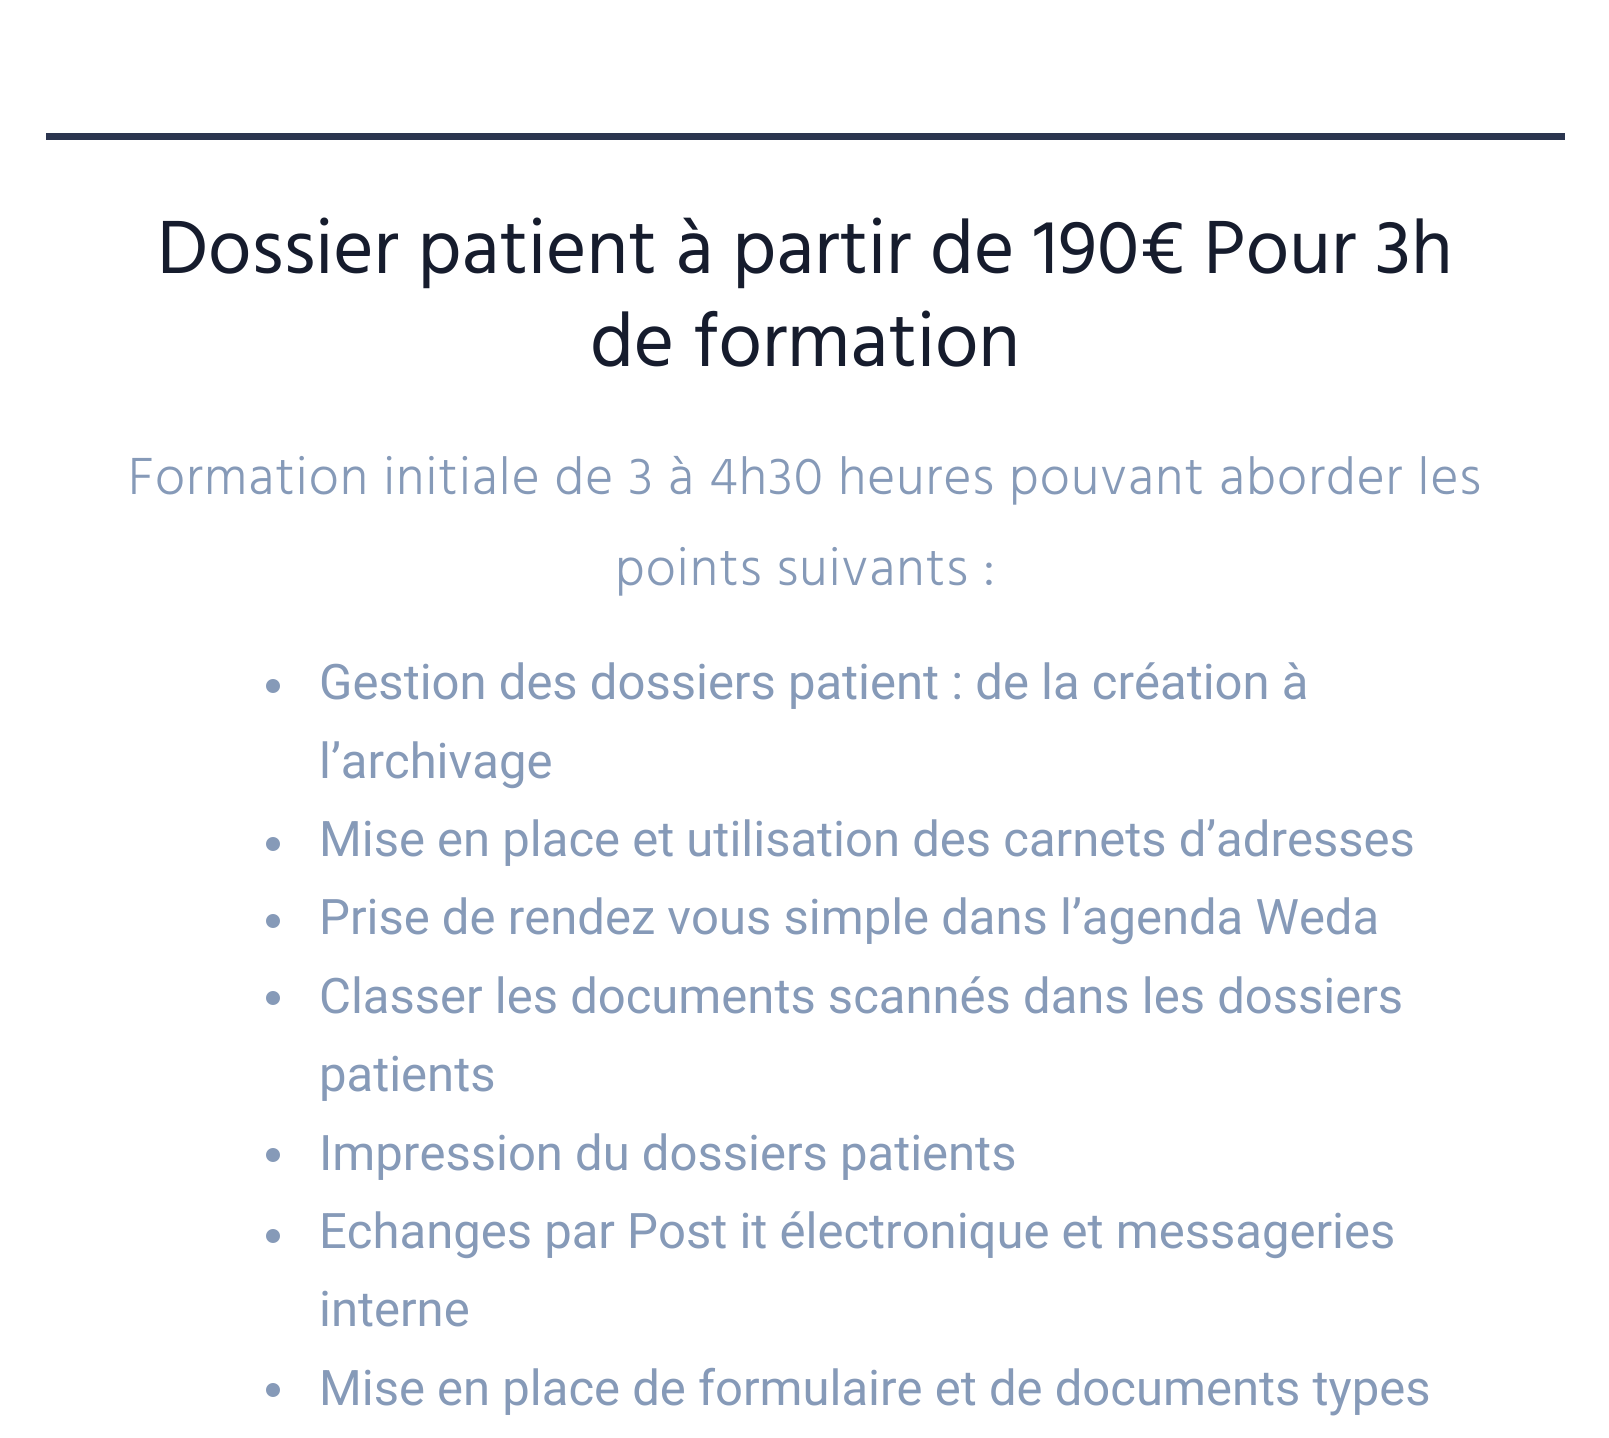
import math
import cairo


def write_spaced(ctx, x, y, s, letter, word):
	ctx.move_to(x, y)
	for ch in s:
		ctx.show_text(ch)
		ctx.rel_move_to(letter + word * (ch == ' '), 0)

def draw(ctx):
	ctx.set_source_rgb(1, 1, 1)
	ctx.paint()
	ctx.set_source_rgb(0.169, 0.208, 0.31)
	ctx.rectangle(46, 133, 1519, 7)
	ctx.fill()
	ctx.select_font_face('Hind')
	ctx.set_font_size(77.3)
	ctx.set_source_rgb(0.086, 0.11, 0.176)
	ctx.move_to(157, 273)
	ctx.show_text('Dossier patient à partir de 190€ Pour 3h')
	ctx.move_to(590, 366)
	ctx.show_text('de formation')
	ctx.select_font_face('Hind Light')
	ctx.set_font_size(53.55)
	ctx.set_source_rgb(0.525, 0.604, 0.722)
	write_spaced(ctx, 128, 494, 'Formation initiale de 3 à 4h30 heures pouvant aborder les', 1.05, 0)
	write_spaced(ctx, 615, 585, 'points suivants :', 1.05, 0)
	ctx.new_path()
	ctx.arc(273, 686, 7, 0, 2 * math.pi)
	ctx.fill()
	ctx.select_font_face('Roboto')
	ctx.set_font_size(49)
	ctx.move_to(319, 699)
	ctx.show_text('Gestion des dossiers patient : de la création à')
	ctx.move_to(319, 778)
	ctx.show_text('l’archivage')
	ctx.new_path()
	ctx.arc(273, 844, 7, 0, 2 * math.pi)
	ctx.fill()
	ctx.move_to(319, 856)
	ctx.show_text('Mise en place et utilisation des carnets d’adresses')
	ctx.new_path()
	ctx.arc(273, 921, 7, 0, 2 * math.pi)
	ctx.fill()
	ctx.move_to(319, 934)
	ctx.show_text('Prise de rendez vous simple dans l’agenda Weda')
	ctx.new_path()
	ctx.arc(273, 998, 7, 0, 2 * math.pi)
	ctx.fill()
	ctx.move_to(319, 1013)
	ctx.show_text('Classer les documents scannés dans les dossiers')
	ctx.move_to(319, 1091)
	ctx.show_text('patients')
	ctx.new_path()
	ctx.arc(273, 1155, 7, 0, 2 * math.pi)
	ctx.fill()
	ctx.move_to(319, 1170)
	ctx.show_text('Impression du dossiers patients')
	ctx.new_path()
	ctx.arc(273, 1236, 7, 0, 2 * math.pi)
	ctx.fill()
	ctx.move_to(319, 1248)
	ctx.show_text('Echanges par Post it électronique et messageries')
	ctx.move_to(319, 1326)
	ctx.show_text('interne')
	ctx.new_path()
	ctx.arc(273, 1390, 7, 0, 2 * math.pi)
	ctx.fill()
	ctx.move_to(319, 1405)
	ctx.show_text('Mise en place de formulaire et de documents types')


surface = cairo.ImageSurface(cairo.FORMAT_RGB24, 1609, 1438)
ctx = cairo.Context(surface)
options = cairo.FontOptions()
options.set_hint_metrics(cairo.HINT_METRICS_OFF)
options.set_hint_style(cairo.HINT_STYLE_NONE)
ctx.set_font_options(options)
ctx.set_miter_limit(4)
draw(ctx)
surface.write_to_png('image.png')
